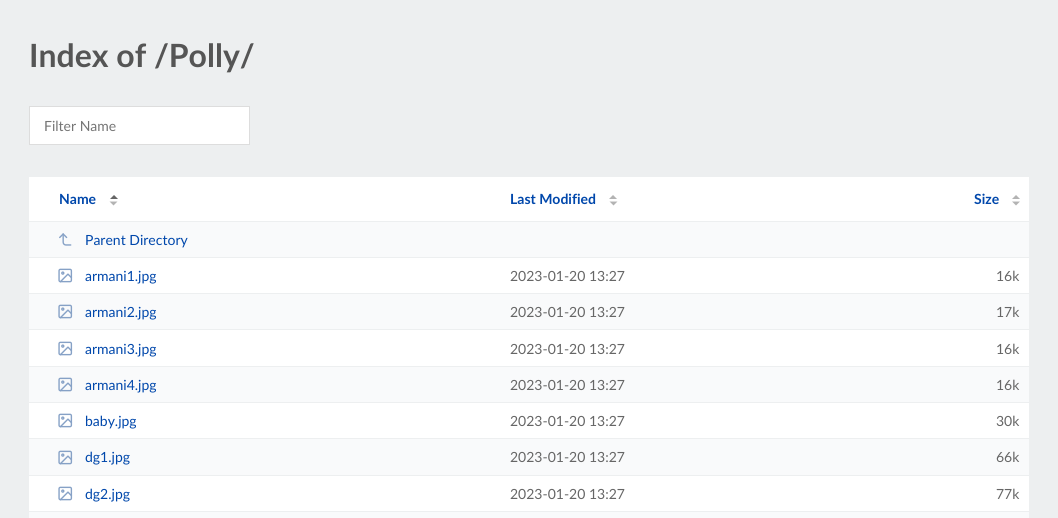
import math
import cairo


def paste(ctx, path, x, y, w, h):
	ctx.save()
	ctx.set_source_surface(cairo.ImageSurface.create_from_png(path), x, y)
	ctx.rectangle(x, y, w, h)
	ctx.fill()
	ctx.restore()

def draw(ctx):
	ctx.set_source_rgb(0.929, 0.937, 0.941)
	ctx.paint()
	ctx.select_font_face('Lato', cairo.FONT_SLANT_NORMAL, cairo.FONT_WEIGHT_BOLD)
	ctx.set_font_size(32)
	ctx.set_source_rgb(0.333, 0.333, 0.333)
	ctx.move_to(29, 67)
	ctx.show_text('Index of /Polly/')
	ctx.set_source_rgb(1, 1, 1)
	ctx.rectangle(29.5, 106.5, 220, 38)
	ctx.fill_preserve()
	ctx.set_source_rgb(0.867, 0.867, 0.867)
	ctx.set_line_width(1)
	ctx.stroke()
	ctx.select_font_face('Lato')
	ctx.set_font_size(14)
	ctx.set_source_rgb(0.459, 0.459, 0.459)
	ctx.move_to(44, 131)
	ctx.show_text('Filter Name')
	ctx.set_source_rgb(1, 1, 1)
	ctx.rectangle(29, 177, 1000, 334)
	ctx.fill()
	ctx.select_font_face('Lato', cairo.FONT_SLANT_NORMAL, cairo.FONT_WEIGHT_BOLD)
	ctx.set_source_rgb(0, 0.278, 0.671)
	ctx.move_to(59, 204)
	ctx.show_text('Name')
	ctx.set_source_rgb(0.4, 0.4, 0.4)
	ctx.new_path()
	ctx.move_to(118, 199)
	ctx.line_to(110, 199)
	ctx.line_to(114, 195)
	ctx.close_path()
	ctx.fill()
	ctx.set_source_rgb(0.702, 0.702, 0.702)
	ctx.new_path()
	ctx.move_to(109.5, 201.5)
	ctx.line_to(117.5, 201.5)
	ctx.line_to(113.5, 205.5)
	ctx.close_path()
	ctx.fill()
	ctx.set_source_rgb(0, 0.278, 0.671)
	ctx.move_to(510, 204)
	ctx.show_text('Last Modified')
	ctx.set_source_rgb(0.702, 0.702, 0.702)
	ctx.new_path()
	ctx.move_to(617, 199)
	ctx.line_to(609, 199)
	ctx.line_to(613, 195)
	ctx.close_path()
	ctx.move_to(609.5, 201.5)
	ctx.line_to(617.5, 201.5)
	ctx.line_to(613.5, 205.5)
	ctx.close_path()
	ctx.fill()
	ctx.set_source_rgb(0, 0.278, 0.671)
	ctx.move_to(974, 204)
	ctx.show_text('Size')
	ctx.set_source_rgb(0.702, 0.702, 0.702)
	ctx.new_path()
	ctx.move_to(1020, 199)
	ctx.line_to(1012, 199)
	ctx.line_to(1016, 195)
	ctx.close_path()
	ctx.move_to(1012, 201.5)
	ctx.line_to(1020, 201.5)
	ctx.line_to(1016, 205.5)
	ctx.close_path()
	ctx.fill()
	ctx.set_source_rgb(0.973, 0.98, 0.984)
	ctx.rectangle(29, 222, 1000, 35)
	ctx.fill()
	ctx.set_source_rgb(0.929, 0.937, 0.941)
	ctx.rectangle(29, 221, 1000, 1)
	ctx.rectangle(29, 257, 1000, 1)
	ctx.fill()
	paste(ctx, 'media/1.png', 59, 233, 13, 13)
	ctx.select_font_face('Lato')
	ctx.set_source_rgb(0, 0.278, 0.671)
	ctx.move_to(85, 245)
	ctx.show_text('Parent Directory')
	paste(ctx, 'media/2.png', 58, 268, 15, 15)
	ctx.move_to(85, 281)
	ctx.show_text('armani1.jpg')
	ctx.set_source_rgb(0.4, 0.4, 0.4)
	ctx.move_to(510, 281)
	ctx.show_text('2023-01-20 13:27')
	ctx.move_to(996, 281)
	ctx.show_text('16k')
	ctx.set_source_rgb(0.973, 0.98, 0.984)
	ctx.rectangle(29, 294, 1000, 35)
	ctx.fill()
	ctx.set_source_rgb(0.929, 0.937, 0.941)
	ctx.rectangle(29, 293, 1000, 1)
	ctx.rectangle(29, 329, 1000, 1)
	ctx.fill()
	paste(ctx, 'media/3.png', 58, 304, 15, 15)
	ctx.set_source_rgb(0, 0.278, 0.671)
	ctx.move_to(85, 317)
	ctx.show_text('armani2.jpg')
	ctx.set_source_rgb(0.4, 0.4, 0.4)
	ctx.move_to(510, 317)
	ctx.show_text('2023-01-20 13:27')
	ctx.move_to(996, 317)
	ctx.show_text('17k')
	paste(ctx, 'media/2.png', 58, 341, 15, 15)
	ctx.set_source_rgb(0, 0.278, 0.671)
	ctx.move_to(85, 354)
	ctx.show_text('armani3.jpg')
	ctx.set_source_rgb(0.4, 0.4, 0.4)
	ctx.move_to(510, 354)
	ctx.show_text('2023-01-20 13:27')
	ctx.move_to(996, 354)
	ctx.show_text('16k')
	ctx.set_source_rgb(0.973, 0.98, 0.984)
	ctx.rectangle(29, 367, 1000, 35)
	ctx.fill()
	ctx.set_source_rgb(0.929, 0.937, 0.941)
	ctx.rectangle(29, 366, 1000, 1)
	ctx.rectangle(29, 402, 1000, 1)
	ctx.fill()
	paste(ctx, 'media/3.png', 58, 377, 15, 15)
	ctx.set_source_rgb(0, 0.278, 0.671)
	ctx.move_to(85, 390)
	ctx.show_text('armani4.jpg')
	ctx.set_source_rgb(0.4, 0.4, 0.4)
	ctx.move_to(510, 390)
	ctx.show_text('2023-01-20 13:27')
	ctx.move_to(996, 390)
	ctx.show_text('16k')
	paste(ctx, 'media/2.png', 58, 413, 15, 15)
	ctx.set_source_rgb(0, 0.278, 0.671)
	ctx.move_to(85, 426)
	ctx.show_text('baby.jpg')
	ctx.set_source_rgb(0.4, 0.4, 0.4)
	ctx.move_to(510, 426)
	ctx.show_text('2023-01-20 13:27')
	ctx.move_to(996, 426)
	ctx.show_text('30k')
	ctx.set_source_rgb(0.973, 0.98, 0.984)
	ctx.rectangle(29, 439, 1000, 36)
	ctx.fill()
	ctx.set_source_rgb(0.929, 0.937, 0.941)
	ctx.rectangle(29, 438, 1000, 1)
	ctx.rectangle(29, 475, 1000, 1)
	ctx.fill()
	paste(ctx, 'media/3.png', 58, 450, 15, 15)
	ctx.set_source_rgb(0, 0.278, 0.671)
	ctx.move_to(85, 462)
	ctx.show_text('dg1.jpg')
	ctx.set_source_rgb(0.4, 0.4, 0.4)
	ctx.move_to(510, 462)
	ctx.show_text('2023-01-20 13:27')
	ctx.move_to(996, 462)
	ctx.show_text('66k')
	paste(ctx, 'media/2.png', 58, 486, 15, 15)
	ctx.set_source_rgb(0, 0.278, 0.671)
	ctx.move_to(85, 499)
	ctx.show_text('dg2.jpg')
	ctx.set_source_rgb(0.4, 0.4, 0.4)
	ctx.move_to(510, 499)
	ctx.show_text('2023-01-20 13:27')
	ctx.move_to(996, 499)
	ctx.show_text('77k')
	ctx.set_source_rgb(0.973, 0.98, 0.984)
	ctx.rectangle(29, 512, 1000, 6)
	ctx.fill()


surface = cairo.ImageSurface(cairo.FORMAT_RGB24, 1058, 518)
ctx = cairo.Context(surface)
options = cairo.FontOptions()
options.set_hint_metrics(cairo.HINT_METRICS_OFF)
options.set_hint_style(cairo.HINT_STYLE_NONE)
ctx.set_font_options(options)
ctx.set_miter_limit(4)
draw(ctx)
surface.write_to_png('image.png')
